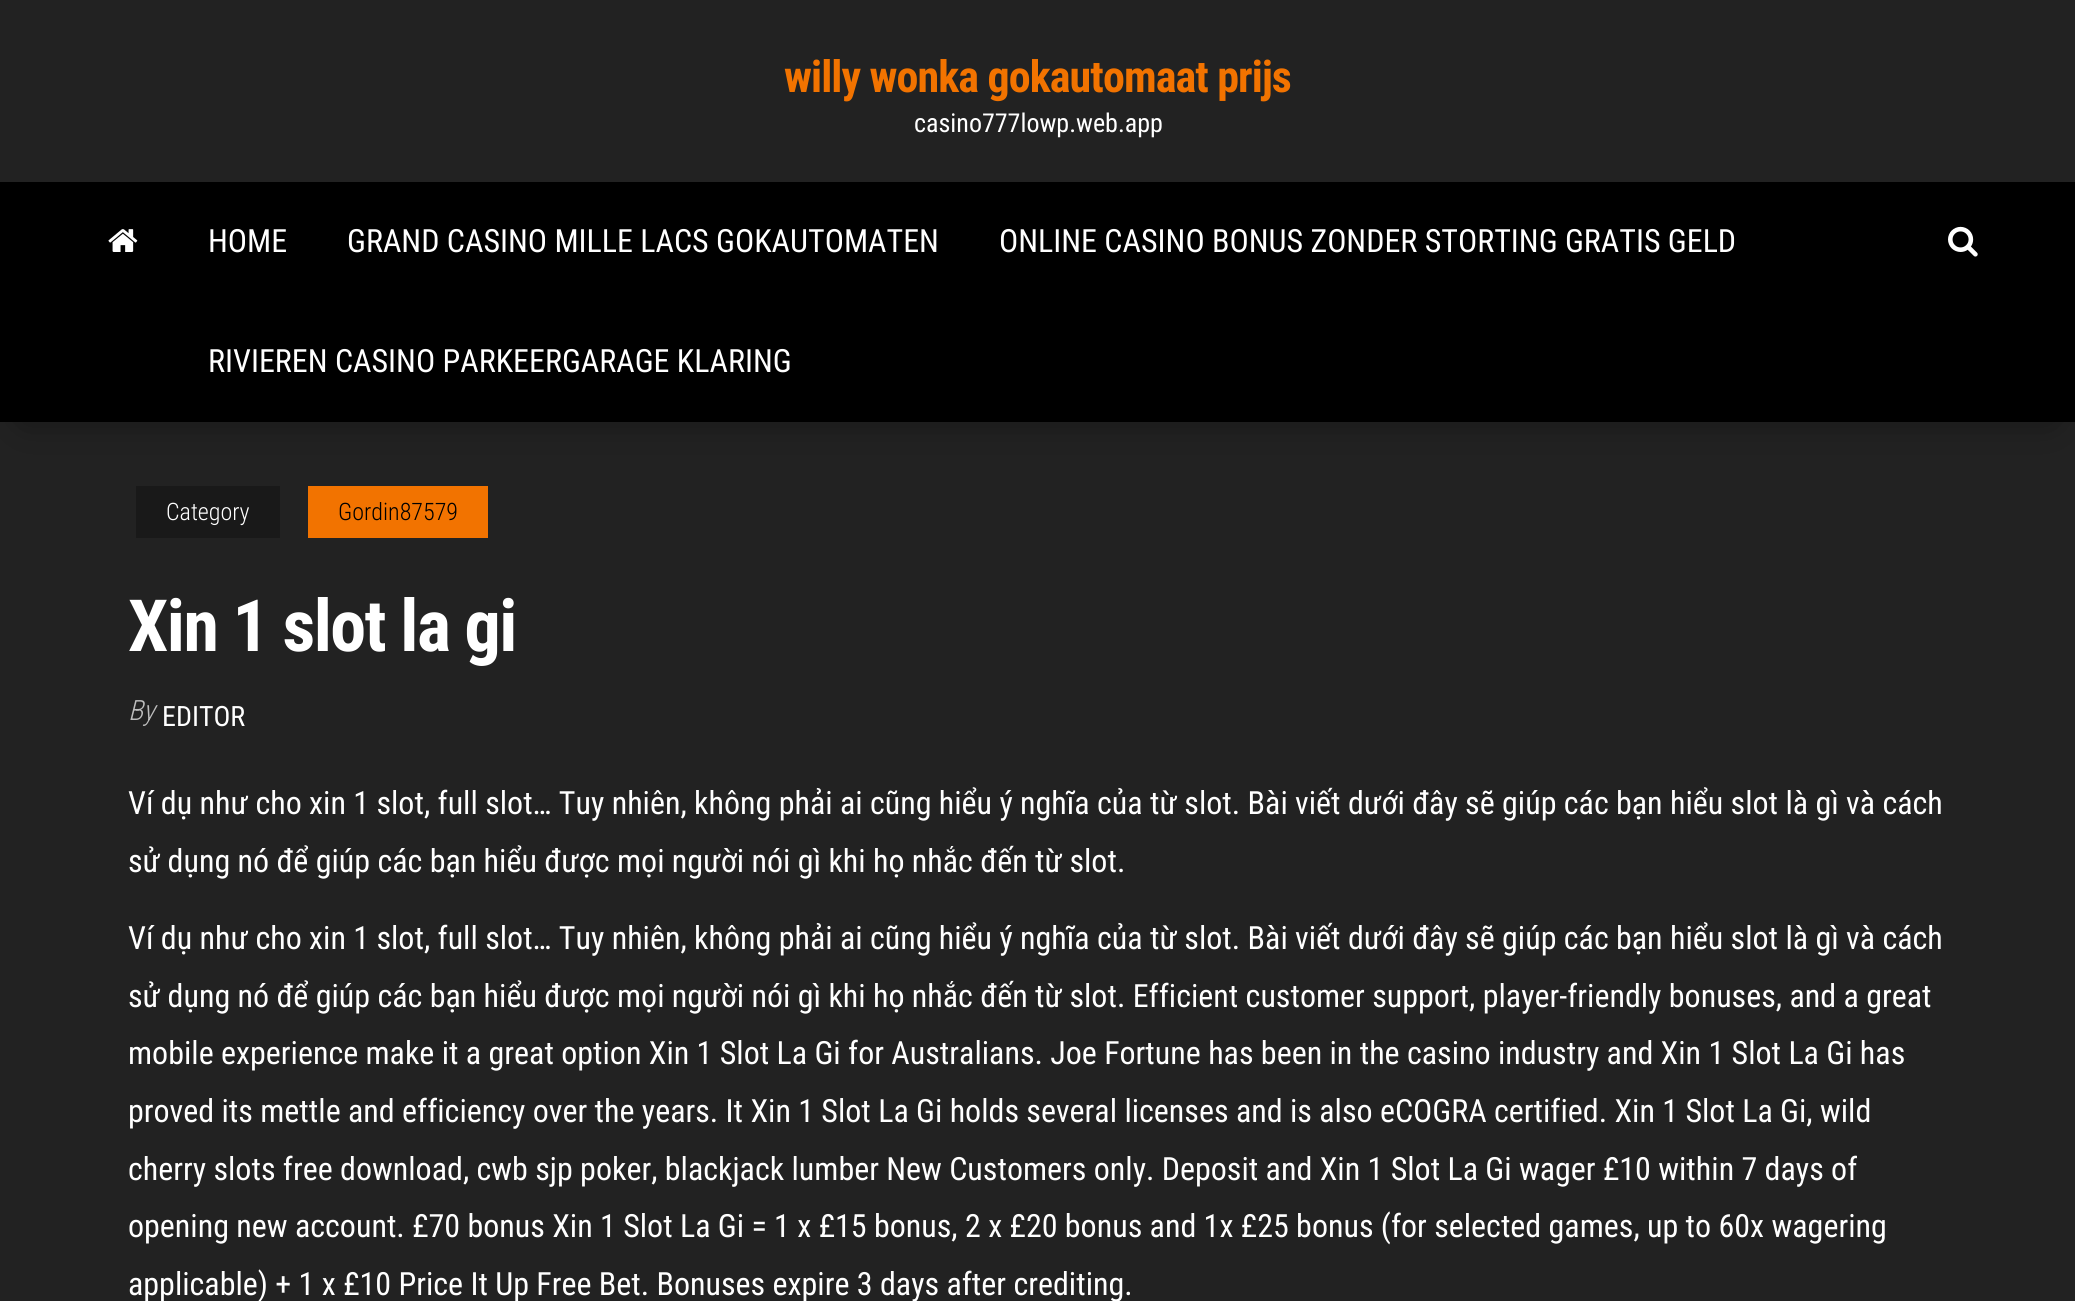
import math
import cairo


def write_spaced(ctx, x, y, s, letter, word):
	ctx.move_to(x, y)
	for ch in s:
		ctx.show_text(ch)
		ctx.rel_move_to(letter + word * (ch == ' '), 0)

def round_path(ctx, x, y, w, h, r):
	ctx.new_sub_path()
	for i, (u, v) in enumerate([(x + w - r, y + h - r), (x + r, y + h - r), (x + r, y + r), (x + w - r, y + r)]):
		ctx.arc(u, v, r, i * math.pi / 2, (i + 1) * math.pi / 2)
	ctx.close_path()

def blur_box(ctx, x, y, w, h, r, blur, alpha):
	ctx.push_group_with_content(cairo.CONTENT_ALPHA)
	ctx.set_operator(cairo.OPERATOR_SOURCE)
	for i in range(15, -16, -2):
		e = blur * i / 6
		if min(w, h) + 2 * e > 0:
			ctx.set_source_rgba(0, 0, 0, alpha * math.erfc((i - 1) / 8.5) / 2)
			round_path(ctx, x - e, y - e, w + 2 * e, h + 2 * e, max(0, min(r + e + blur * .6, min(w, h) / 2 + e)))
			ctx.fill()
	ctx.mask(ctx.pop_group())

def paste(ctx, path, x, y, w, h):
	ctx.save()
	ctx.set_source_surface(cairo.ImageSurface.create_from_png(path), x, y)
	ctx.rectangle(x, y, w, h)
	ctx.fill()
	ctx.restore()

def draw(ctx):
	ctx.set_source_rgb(0.133, 0.133, 0.133)
	ctx.paint()
	ctx.select_font_face('Roboto Condensed', cairo.FONT_SLANT_NORMAL, cairo.FONT_WEIGHT_BOLD)
	ctx.set_font_size(44)
	ctx.set_source_rgb(0.949, 0.451, 0)
	write_spaced(ctx, 784, 92, 'willy wonka gokautomaat prijs', -0.9, 0)
	ctx.select_font_face('Roboto Condensed')
	ctx.set_font_size(26)
	ctx.set_source_rgb(1, 1, 1)
	ctx.move_to(914, 132)
	ctx.show_text('casino777lowp.web.app')
	ctx.set_source_rgb(0, 0, 0)
	blur_box(ctx, 24, 226, 2028, 192, 0, 20, 0.42)
	ctx.set_source_rgb(0, 0, 0)
	ctx.rectangle(0, 182, 2075, 240)
	ctx.fill()
	paste(ctx, 'media/1.png', 108, 229, 30, 23)
	ctx.set_font_size(32)
	ctx.set_source_rgb(1, 1, 1)
	for x, y, s in [
		(208, 252, 'HOME'),
		(347, 252, 'GRAND CASINO MILLE LACS GOKAUTOMATEN'),
		(999, 252, 'ONLINE CASINO BONUS ZONDER STORTING GRATIS GELD'),
		(208, 372, 'RIVIEREN CASINO PARKEERGARAGE KLARING'),
	]:
		ctx.move_to(x, y)
		ctx.show_text(s)
	paste(ctx, 'media/2.png', 1948, 226, 30, 31)
	ctx.set_source_rgb(0.098, 0.098, 0.098)
	ctx.rectangle(136, 486, 144, 52)
	ctx.fill()
	ctx.select_font_face('Roboto Condensed Light')
	ctx.set_font_size(24)
	ctx.set_source_rgb(1, 1, 1)
	ctx.move_to(166, 520)
	ctx.show_text('Category')
	ctx.set_source_rgb(0.949, 0.451, 0)
	ctx.rectangle(308, 486, 180, 52)
	ctx.fill()
	ctx.set_source_rgb(0, 0, 0)
	ctx.move_to(338, 520)
	ctx.show_text('Gordin87579')
	ctx.select_font_face('Roboto Condensed', cairo.FONT_SLANT_NORMAL, cairo.FONT_WEIGHT_BOLD)
	ctx.set_font_size(72)
	ctx.set_source_rgb(1, 1, 1)
	write_spaced(ctx, 128, 651, 'Xin 1 slot la gi', -1.5, 0)
	ctx.select_font_face('Roboto Condensed Light', cairo.FONT_SLANT_ITALIC)
	ctx.set_font_size(28)
	ctx.set_source_rgb(0.741, 0.741, 0.741)
	ctx.move_to(128, 720)
	ctx.show_text('By')
	ctx.select_font_face('Roboto Condensed')
	ctx.set_source_rgb(1, 1, 1)
	ctx.move_to(162, 726)
	ctx.show_text('EDITOR')
	ctx.set_font_size(32)
	for x, y, s in [
		(128, 814, 'Ví dụ như cho xin 1 slot, full slot… Tuy nhiên, không phải ai cũng hiểu ý nghĩa của từ slot. Bài viết dưới đây sẽ giúp các bạn hiểu slot là gì và cách'),
		(128, 872, 'sử dụng nó để giúp các bạn hiểu được mọi người nói gì khi họ nhắc đến từ slot.'),
		(128, 949, 'Ví dụ như cho xin 1 slot, full slot… Tuy nhiên, không phải ai cũng hiểu ý nghĩa của từ slot. Bài viết dưới đây sẽ giúp các bạn hiểu slot là gì và cách'),
		(128, 1007, 'sử dụng nó để giúp các bạn hiểu được mọi người nói gì khi họ nhắc đến từ slot. Efficient customer support, player-friendly bonuses, and a great'),
		(128, 1064, 'mobile experience make it a great option Xin 1 Slot La Gi for Australians. Joe Fortune has been in the casino industry and Xin 1 Slot La Gi has'),
		(128, 1122, 'proved its mettle and efficiency over the years. It Xin 1 Slot La Gi holds several licenses and is also eCOGRA certified. Xin 1 Slot La Gi, wild'),
		(128, 1180, 'cherry slots free download, cwb sjp poker, blackjack lumber New Customers only. Deposit and Xin 1 Slot La Gi wager £10 within 7 days of'),
		(128, 1237, 'opening new account. £70 bonus Xin 1 Slot La Gi = 1 x £15 bonus, 2 x £20 bonus and 1x £25 bonus (for selected games, up to 60x wagering'),
		(128, 1295, 'applicable) + 1 x £10 Price It Up Free Bet. Bonuses expire 3 days after crediting.'),
	]:
		ctx.move_to(x, y)
		ctx.show_text(s)


surface = cairo.ImageSurface(cairo.FORMAT_RGB24, 2075, 1301)
ctx = cairo.Context(surface)
options = cairo.FontOptions()
options.set_hint_metrics(cairo.HINT_METRICS_OFF)
options.set_hint_style(cairo.HINT_STYLE_NONE)
ctx.set_font_options(options)
ctx.set_miter_limit(4)
draw(ctx)
surface.write_to_png('image.png')
